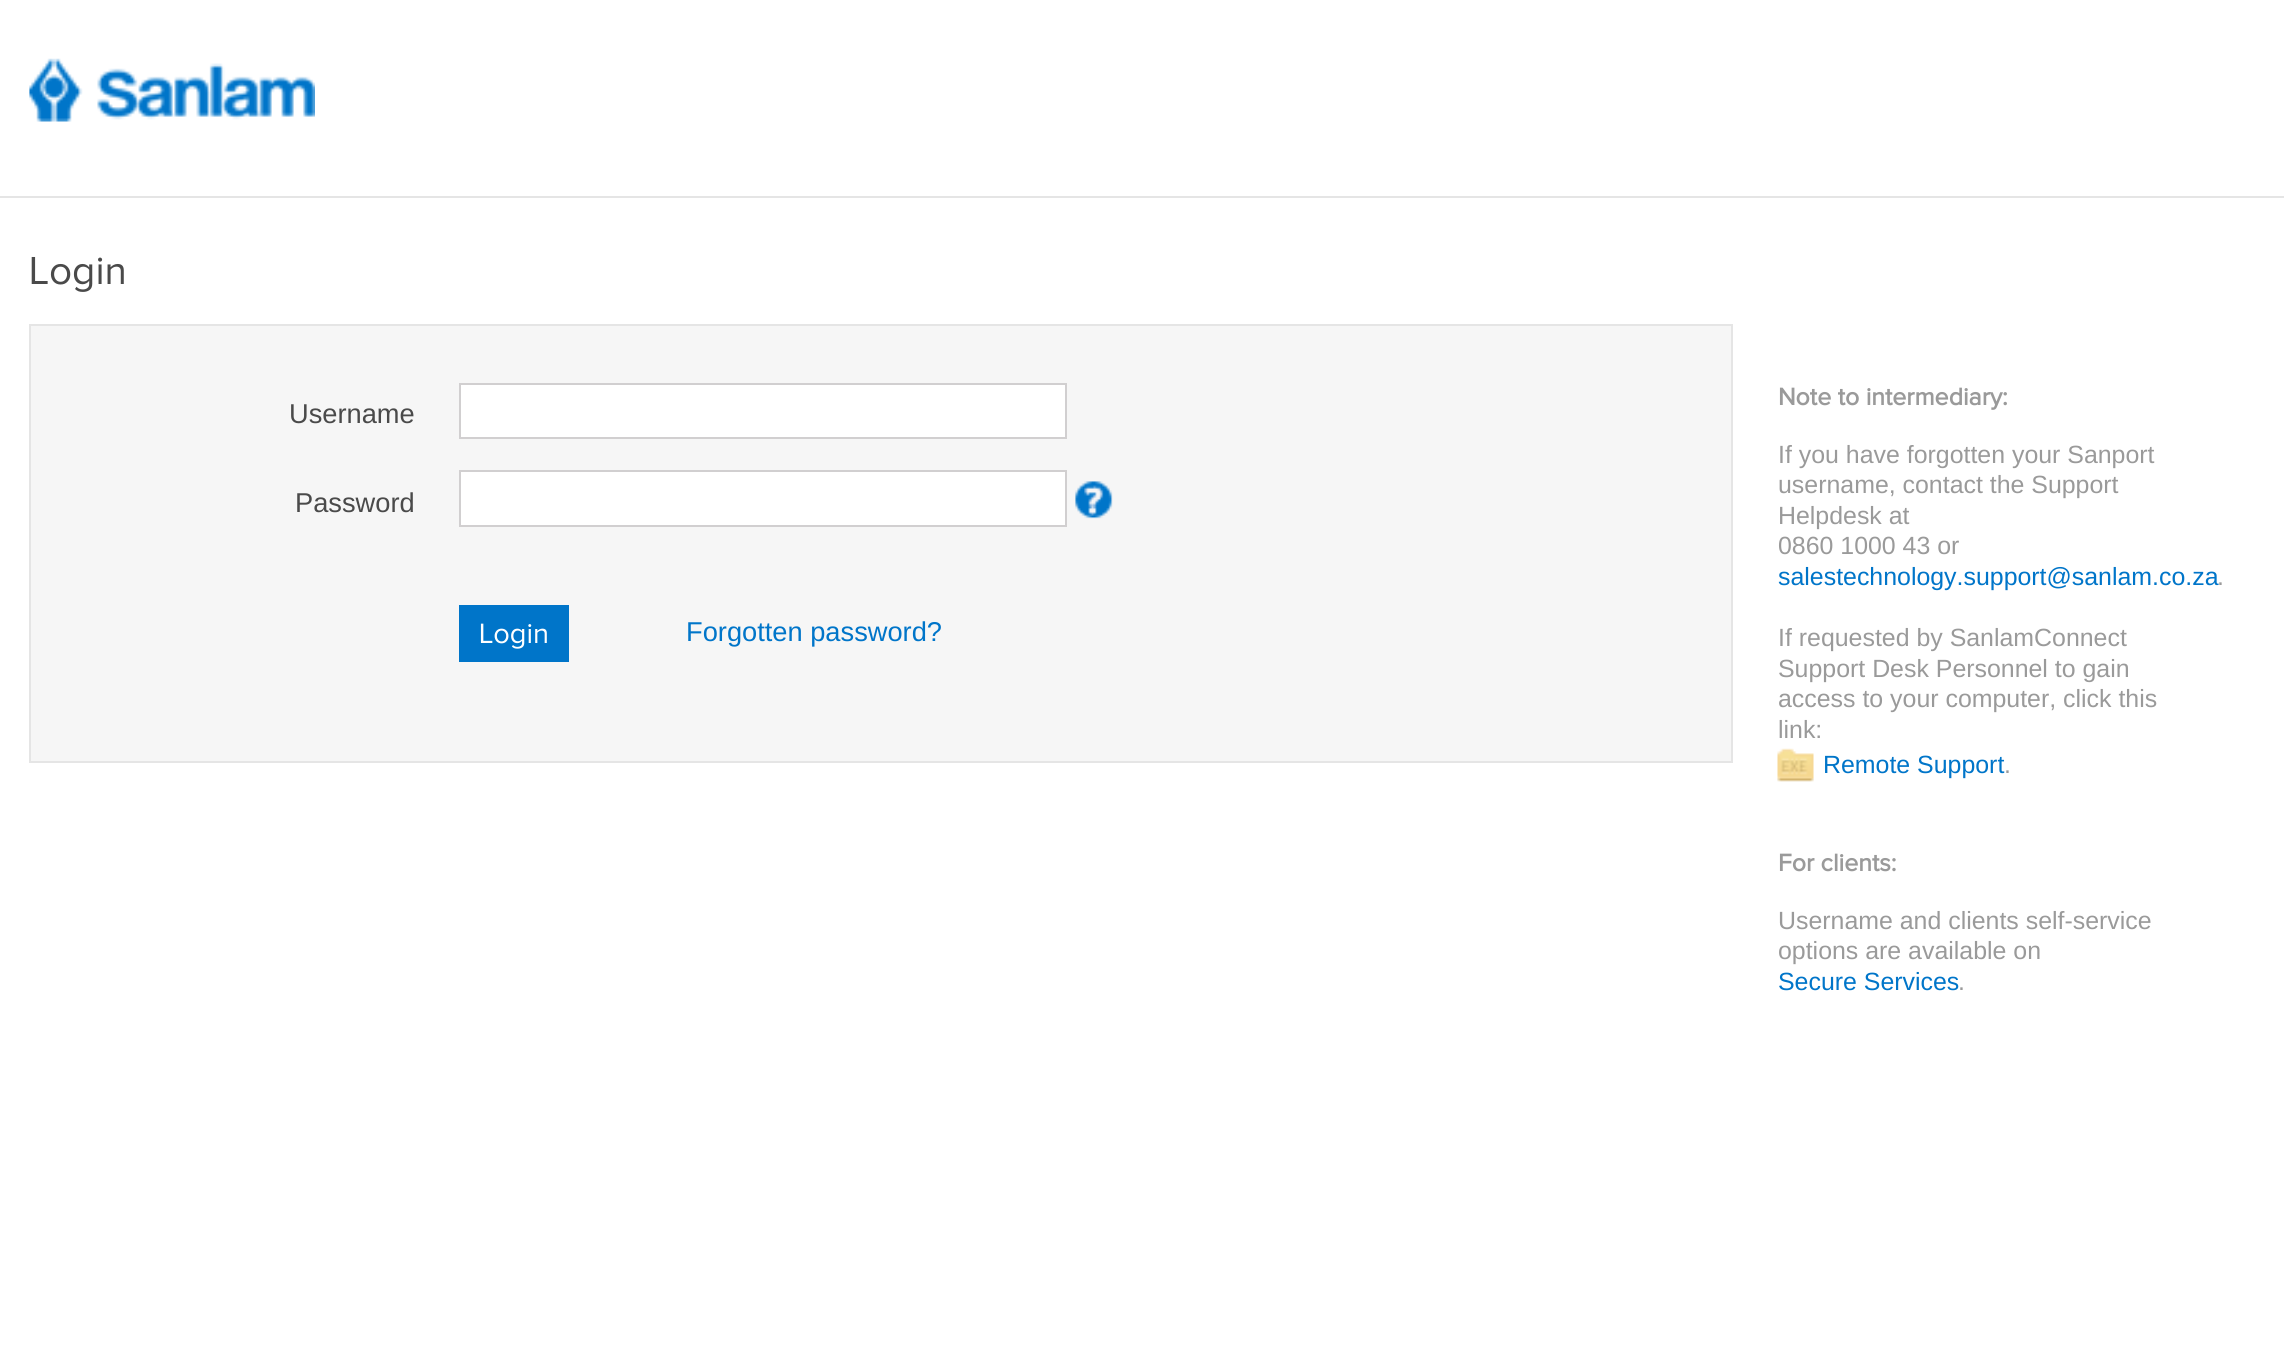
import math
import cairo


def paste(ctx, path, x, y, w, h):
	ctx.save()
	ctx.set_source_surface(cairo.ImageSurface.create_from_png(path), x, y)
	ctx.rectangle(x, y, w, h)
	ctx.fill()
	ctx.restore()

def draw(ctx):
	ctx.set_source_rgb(1, 1, 1)
	ctx.paint()
	paste(ctx, 'media/1.png', 29, 58, 286, 64)
	ctx.set_source_rgb(0.898, 0.898, 0.898)
	ctx.rectangle(0, 196, 2284, 2)
	ctx.fill()
	ctx.select_font_face('Proxima Nova')
	ctx.set_font_size(40.5)
	ctx.set_source_rgb(0.29, 0.29, 0.29)
	ctx.move_to(29, 284)
	ctx.show_text('Login')
	ctx.set_source_rgb(0.961, 0.961, 0.961)
	ctx.rectangle(30, 325, 1702, 437)
	ctx.fill_preserve()
	ctx.set_source_rgb(0.898, 0.898, 0.898)
	ctx.stroke()
	ctx.select_font_face('Liberation Sans')
	ctx.set_font_size(27.25)
	ctx.set_source_rgb(0.29, 0.29, 0.29)
	ctx.move_to(289, 423)
	ctx.show_text('Username')
	ctx.set_source_rgb(1, 1, 1)
	ctx.rectangle(460, 384, 606, 54)
	ctx.fill_preserve()
	ctx.set_source_rgb(0.82, 0.812, 0.816)
	ctx.stroke()
	ctx.set_source_rgb(0.29, 0.29, 0.29)
	ctx.move_to(295, 512)
	ctx.show_text('Password')
	ctx.set_source_rgb(1, 1, 1)
	ctx.rectangle(460, 471, 606, 55)
	ctx.fill_preserve()
	ctx.set_source_rgb(0.82, 0.812, 0.816)
	ctx.stroke()
	paste(ctx, 'media/2.png', 1075, 481, 38, 38)
	ctx.set_source_rgb(0, 0.459, 0.788)
	ctx.rectangle(459, 605, 110, 57)
	ctx.fill()
	ctx.select_font_face('Proxima Nova')
	ctx.set_font_size(29)
	ctx.set_source_rgb(1, 1, 1)
	ctx.move_to(479, 643)
	ctx.show_text('Login')
	ctx.select_font_face('Liberation Sans')
	ctx.set_font_size(27.25)
	ctx.set_source_rgb(0, 0.459, 0.788)
	ctx.move_to(686, 641)
	ctx.show_text('Forgotten password?')
	ctx.select_font_face('Proxima Nova', cairo.FONT_SLANT_NORMAL, cairo.FONT_WEIGHT_BOLD)
	ctx.set_font_size(24.9)
	ctx.set_source_rgb(0.604, 0.604, 0.604)
	ctx.move_to(1778, 405)
	ctx.show_text('Note to intermediary:')
	ctx.select_font_face('Liberation Sans')
	for x, y, s in [
		(1778, 463, 'If you have forgotten your Sanport'),
		(1778, 493, 'username, contact the Support'),
		(1778, 524, 'Helpdesk at'),
		(1778, 554, '0860 1000 43 or'),
	]:
		ctx.move_to(x, y)
		ctx.show_text(s)
	ctx.set_source_rgb(0, 0.459, 0.788)
	ctx.move_to(1778, 585)
	ctx.show_text('salestechnology.support@sanlam.co.za')
	ctx.set_source_rgb(0.604, 0.604, 0.604)
	for x, y, s in [
		(2217, 585, '.'),
		(1778, 646, 'If requested by SanlamConnect'),
		(1778, 677, 'Support Desk Personnel to gain'),
		(1778, 707, 'access to your computer, click this'),
		(1778, 738, 'link:'),
	]:
		ctx.move_to(x, y)
		ctx.show_text(s)
	paste(ctx, 'media/3.png', 1777, 748, 37, 34)
	ctx.set_source_rgb(0, 0.459, 0.788)
	ctx.move_to(1823, 773)
	ctx.show_text('Remote Support')
	ctx.set_source_rgb(0.604, 0.604, 0.604)
	ctx.move_to(2004, 773)
	ctx.show_text('.')
	ctx.select_font_face('Proxima Nova', cairo.FONT_SLANT_NORMAL, cairo.FONT_WEIGHT_BOLD)
	ctx.move_to(1778, 871)
	ctx.show_text('For clients:')
	ctx.select_font_face('Liberation Sans')
	ctx.move_to(1778, 929)
	ctx.show_text('Username and clients self-service')
	ctx.move_to(1778, 959)
	ctx.show_text('options are available on')
	ctx.set_source_rgb(0, 0.459, 0.788)
	ctx.move_to(1778, 990)
	ctx.show_text('Secure Services')
	ctx.set_source_rgb(0.604, 0.604, 0.604)
	ctx.move_to(1958, 990)
	ctx.show_text('.')


surface = cairo.ImageSurface(cairo.FORMAT_RGB24, 2284, 1361)
ctx = cairo.Context(surface)
options = cairo.FontOptions()
options.set_hint_metrics(cairo.HINT_METRICS_OFF)
options.set_hint_style(cairo.HINT_STYLE_NONE)
ctx.set_font_options(options)
ctx.set_miter_limit(4)
draw(ctx)
surface.write_to_png('image.png')
